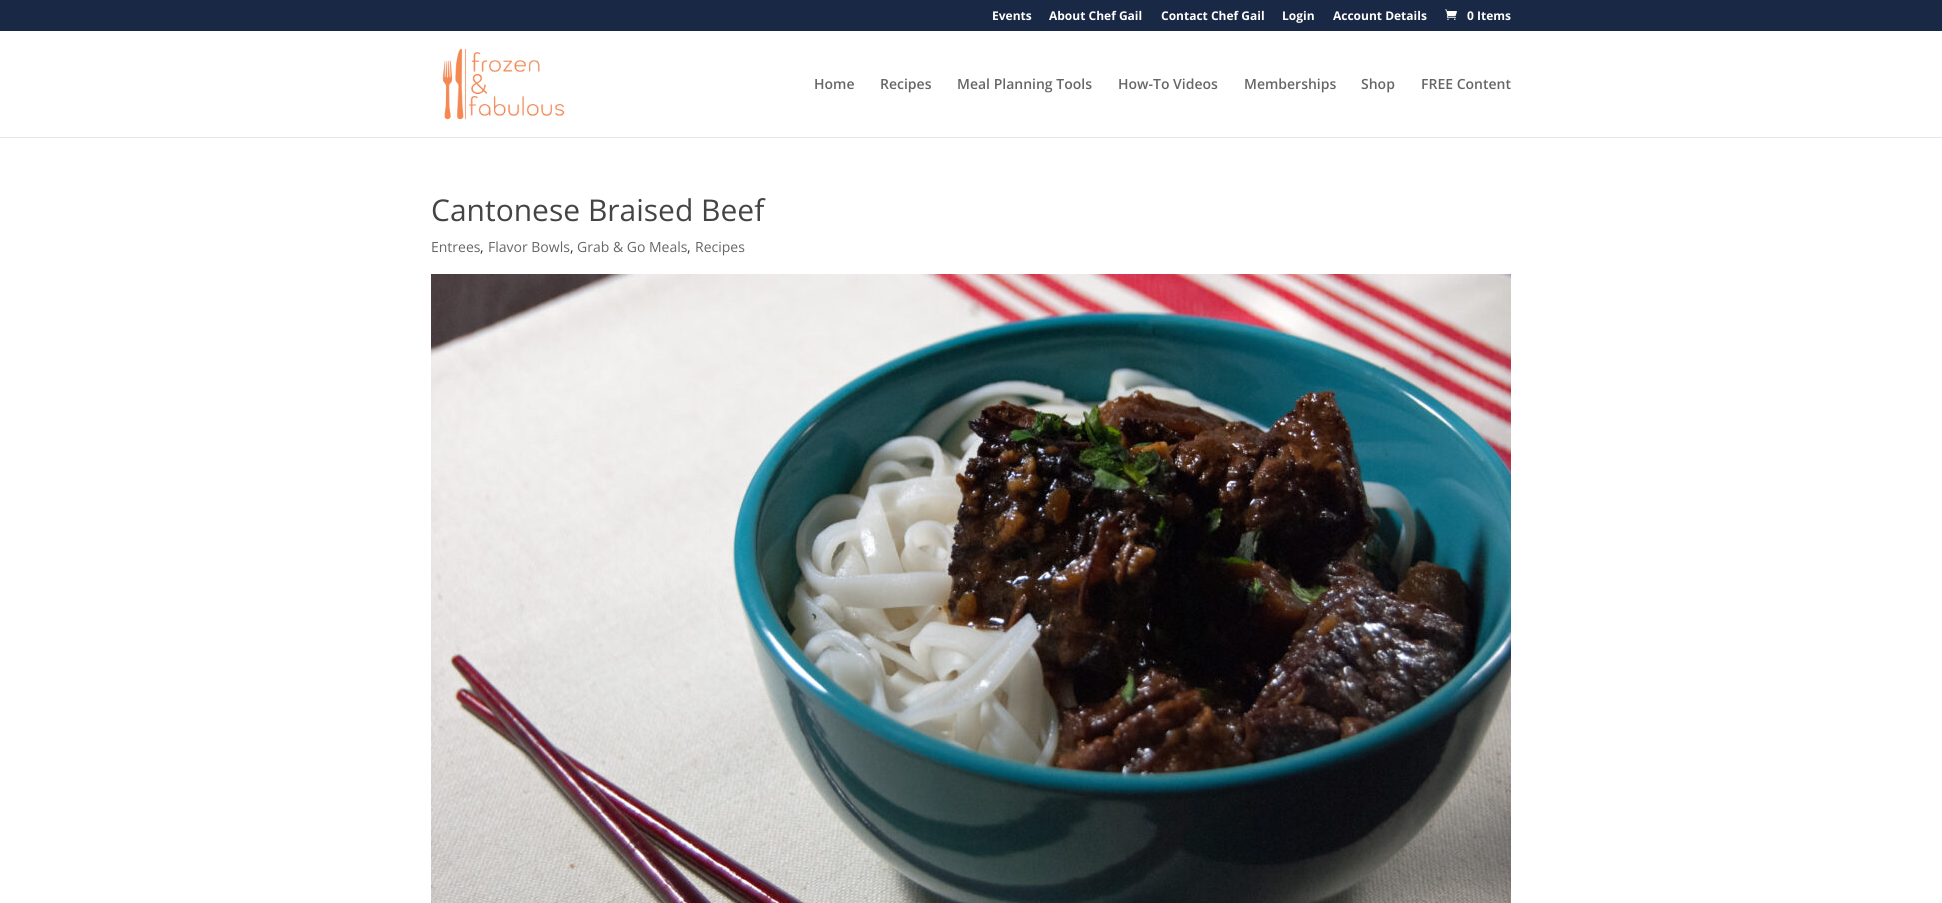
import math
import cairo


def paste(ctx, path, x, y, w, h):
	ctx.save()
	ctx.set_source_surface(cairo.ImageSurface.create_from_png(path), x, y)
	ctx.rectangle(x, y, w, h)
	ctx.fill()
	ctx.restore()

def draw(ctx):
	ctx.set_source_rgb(1, 1, 1)
	ctx.paint()
	ctx.set_source_rgb(0.098, 0.157, 0.271)
	ctx.rectangle(0, 0, 1942, 31)
	ctx.fill()
	ctx.select_font_face('Open Sans', cairo.FONT_SLANT_NORMAL, cairo.FONT_WEIGHT_BOLD)
	ctx.set_font_size(12)
	ctx.set_source_rgb(1, 1, 1)
	for x, y, s in [
		(992, 20, 'Events'),
		(1049, 20, 'About Chef Gail'),
		(1161, 20, 'Contact Chef Gail'),
		(1282, 20, 'Login'),
		(1333, 20, 'Account Details'),
	]:
		ctx.move_to(x, y)
		ctx.show_text(s)
	paste(ctx, 'media/1.png', 1445, 9, 12, 11)
	ctx.move_to(1467, 20)
	ctx.show_text('0 Items')
	ctx.set_source_rgb(0.902, 0.902, 0.902)
	ctx.rectangle(0, 137, 1942, 1)
	ctx.fill()
	paste(ctx, 'media/2.png', 442, 48, 123, 72)
	ctx.select_font_face('Open Sans SemiBold')
	ctx.set_font_size(14)
	ctx.set_source_rgb(0.4, 0.4, 0.4)
	for x, y, s in [
		(814, 89, 'Home'),
		(880, 89, 'Recipes'),
		(957, 89, 'Meal Planning Tools'),
		(1118, 89, 'How-To Videos'),
		(1244, 89, 'Memberships'),
		(1361, 89, 'Shop'),
		(1421, 89, 'FREE Content'),
	]:
		ctx.move_to(x, y)
		ctx.show_text(s)
	ctx.select_font_face('Open Sans')
	ctx.set_font_size(30)
	ctx.set_source_rgb(0.267, 0.267, 0.267)
	ctx.move_to(431, 221)
	ctx.show_text('Cantonese Braised Beef')
	ctx.set_font_size(14)
	ctx.set_source_rgb(0.4, 0.4, 0.4)
	ctx.move_to(431, 252)
	ctx.show_text('Entrees')
	ctx.set_source_rgb(0.2, 0.2, 0.2)
	ctx.move_to(480, 252)
	ctx.show_text(',')
	ctx.set_source_rgb(0.4, 0.4, 0.4)
	ctx.move_to(488, 252)
	ctx.show_text('Flavor Bowls')
	ctx.set_source_rgb(0.2, 0.2, 0.2)
	ctx.move_to(570, 252)
	ctx.show_text(',')
	ctx.set_source_rgb(0.4, 0.4, 0.4)
	ctx.move_to(577, 252)
	ctx.show_text('Grab & Go Meals')
	ctx.set_source_rgb(0.2, 0.2, 0.2)
	ctx.move_to(687, 252)
	ctx.show_text(',')
	ctx.set_source_rgb(0.4, 0.4, 0.4)
	ctx.move_to(695, 252)
	ctx.show_text('Recipes')
	paste(ctx, 'media/3.png', 431, 274, 1080, 629)


surface = cairo.ImageSurface(cairo.FORMAT_RGB24, 1942, 903)
ctx = cairo.Context(surface)
options = cairo.FontOptions()
options.set_hint_metrics(cairo.HINT_METRICS_OFF)
options.set_hint_style(cairo.HINT_STYLE_NONE)
ctx.set_font_options(options)
ctx.set_miter_limit(4)
draw(ctx)
surface.write_to_png('image.png')
